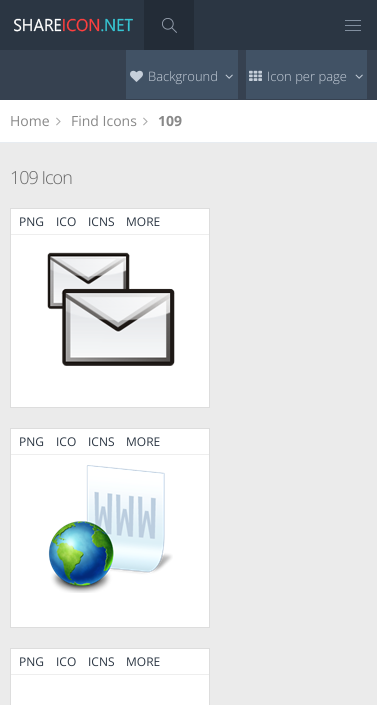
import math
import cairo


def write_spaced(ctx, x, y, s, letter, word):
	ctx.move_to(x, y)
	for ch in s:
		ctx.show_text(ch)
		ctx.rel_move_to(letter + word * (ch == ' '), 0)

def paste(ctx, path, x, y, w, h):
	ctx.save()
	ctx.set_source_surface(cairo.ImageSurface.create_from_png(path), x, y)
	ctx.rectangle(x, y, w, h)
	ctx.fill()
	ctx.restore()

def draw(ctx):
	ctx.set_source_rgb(0.212, 0.255, 0.314)
	ctx.paint()
	ctx.set_source_rgb(0.169, 0.212, 0.263)
	ctx.rectangle(0, 0, 377, 50)
	ctx.fill()
	paste(ctx, 'media/1.png', 14, 18, 119, 14)
	ctx.set_source_rgb(0.137, 0.173, 0.216)
	ctx.rectangle(144, 0, 50, 50)
	ctx.fill()
	paste(ctx, 'media/2.png', 162, 18, 15, 15)
	ctx.set_source_rgb(0.51, 0.561, 0.624)
	ctx.rectangle(345, 25, 16, 1)
	ctx.rectangle(345, 20, 16, 1)
	ctx.rectangle(345, 30, 16, 1)
	ctx.fill()
	ctx.set_source_rgb(0.255, 0.322, 0.396)
	ctx.rectangle(126, 50, 112, 49)
	ctx.fill()
	paste(ctx, 'media/3.png', 130, 70, 13, 12)
	ctx.select_font_face('Open Sans Light')
	ctx.set_font_size(13)
	ctx.set_source_rgb(0.776, 0.812, 0.855)
	ctx.move_to(148, 81)
	ctx.show_text('Background')
	paste(ctx, 'media/4.png', 225, 74, 8, 5)
	ctx.set_source_rgb(0.255, 0.322, 0.396)
	ctx.rectangle(246, 50, 121, 49)
	ctx.fill()
	paste(ctx, 'media/5.png', 249, 70, 13, 11)
	ctx.set_source_rgb(0.776, 0.812, 0.855)
	ctx.move_to(267, 81)
	ctx.show_text('Icon per page')
	paste(ctx, 'media/4.png', 355, 74, 8, 5)
	ctx.set_source_rgb(0.918, 0.918, 0.918)
	ctx.rectangle(0, 143, 377, 562)
	ctx.fill()
	ctx.set_source_rgb(1, 1, 1)
	ctx.rectangle(0, 100, 377, 42)
	ctx.fill()
	ctx.set_source_rgb(0.906, 0.925, 0.945)
	ctx.rectangle(0, 142, 377, 1)
	ctx.fill()
	ctx.select_font_face('Open Sans')
	ctx.set_font_size(14)
	ctx.set_source_rgb(0.533, 0.533, 0.533)
	ctx.move_to(10, 126)
	ctx.show_text('Home')
	paste(ctx, 'media/6.png', 56, 117, 5, 9)
	ctx.move_to(71, 126)
	ctx.show_text('Find Icons')
	paste(ctx, 'media/6.png', 143, 117, 5, 9)
	ctx.select_font_face('Open Sans', cairo.FONT_SLANT_NORMAL, cairo.FONT_WEIGHT_BOLD)
	ctx.move_to(158, 126)
	ctx.show_text('109')
	ctx.select_font_face('Open Sans Light')
	ctx.set_font_size(18)
	ctx.set_source_rgb(0.4, 0.4, 0.4)
	write_spaced(ctx, 10, 184, '109 Icon', -1, 0)
	ctx.set_source_rgb(1, 1, 1)
	ctx.rectangle(10.5, 208.5, 199, 199)
	ctx.fill_preserve()
	ctx.set_source_rgb(0.867, 0.867, 0.867)
	ctx.set_line_width(1)
	ctx.stroke()
	ctx.set_source_rgb(0.933, 0.933, 0.933)
	ctx.rectangle(11, 234, 198, 1)
	ctx.fill()
	ctx.select_font_face('Open Sans')
	ctx.set_font_size(12)
	ctx.set_source_rgb(0.169, 0.212, 0.263)
	for x, y, s in [
		(19, 226, 'PNG'),
		(56, 226, 'ICO'),
		(88, 226, 'ICNS'),
		(126, 226, 'MORE'),
	]:
		ctx.move_to(x, y)
		ctx.show_text(s)
	paste(ctx, 'media/7.png', 47, 252, 128, 114)
	ctx.set_source_rgb(1, 1, 1)
	ctx.rectangle(10.5, 428.5, 199, 199)
	ctx.fill_preserve()
	ctx.set_source_rgb(0.867, 0.867, 0.867)
	ctx.stroke()
	ctx.set_source_rgb(0.933, 0.933, 0.933)
	ctx.rectangle(11, 454, 198, 1)
	ctx.fill()
	ctx.set_source_rgb(0.169, 0.212, 0.263)
	for x, y, s in [
		(19, 446, 'PNG'),
		(56, 446, 'ICO'),
		(88, 446, 'ICNS'),
		(126, 446, 'MORE'),
	]:
		ctx.move_to(x, y)
		ctx.show_text(s)
	paste(ctx, 'media/8.png', 48, 465, 125, 128)
	ctx.set_source_rgb(1, 1, 1)
	ctx.rectangle(10.5, 648.5, 199, 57)
	ctx.fill_preserve()
	ctx.set_source_rgb(0.867, 0.867, 0.867)
	ctx.stroke()
	ctx.set_source_rgb(0.933, 0.933, 0.933)
	ctx.rectangle(11, 674, 198, 1)
	ctx.fill()
	ctx.set_source_rgb(0.169, 0.212, 0.263)
	for x, y, s in [
		(19, 666, 'PNG'),
		(56, 666, 'ICO'),
		(88, 666, 'ICNS'),
		(126, 666, 'MORE'),
	]:
		ctx.move_to(x, y)
		ctx.show_text(s)


surface = cairo.ImageSurface(cairo.FORMAT_RGB24, 377, 705)
ctx = cairo.Context(surface)
options = cairo.FontOptions()
options.set_hint_metrics(cairo.HINT_METRICS_OFF)
options.set_hint_style(cairo.HINT_STYLE_NONE)
ctx.set_font_options(options)
ctx.set_miter_limit(4)
draw(ctx)
surface.write_to_png('image.png')
